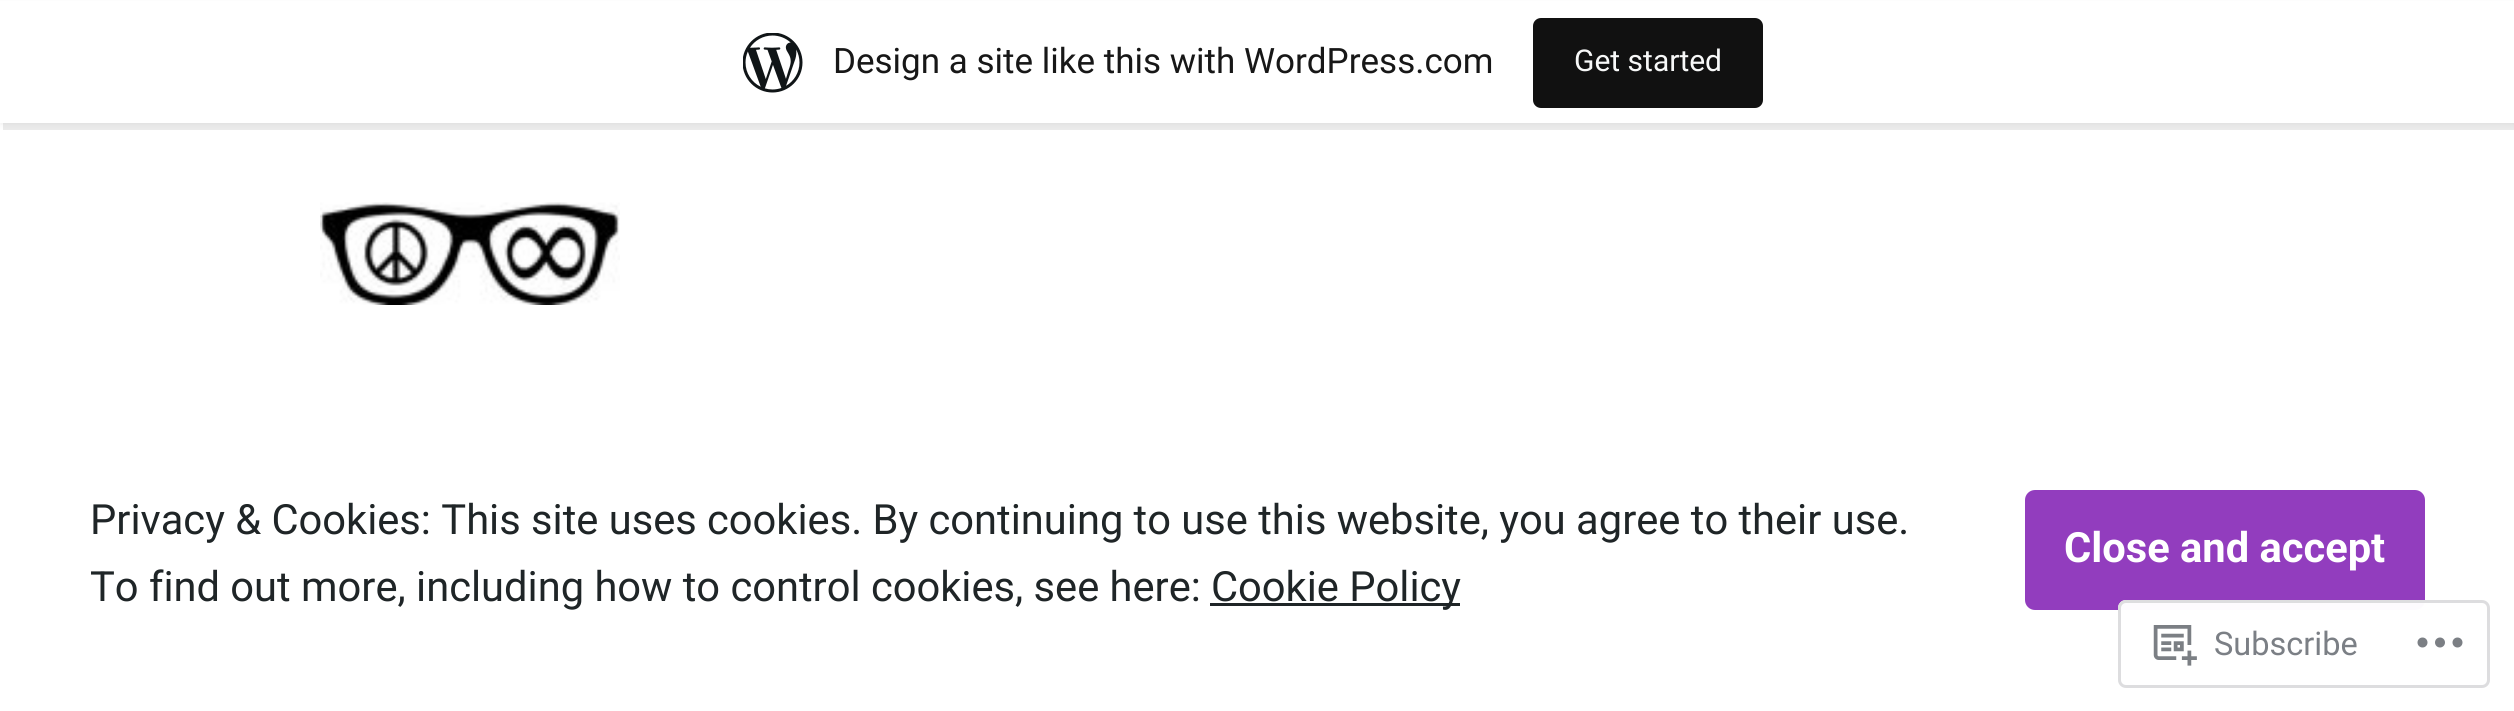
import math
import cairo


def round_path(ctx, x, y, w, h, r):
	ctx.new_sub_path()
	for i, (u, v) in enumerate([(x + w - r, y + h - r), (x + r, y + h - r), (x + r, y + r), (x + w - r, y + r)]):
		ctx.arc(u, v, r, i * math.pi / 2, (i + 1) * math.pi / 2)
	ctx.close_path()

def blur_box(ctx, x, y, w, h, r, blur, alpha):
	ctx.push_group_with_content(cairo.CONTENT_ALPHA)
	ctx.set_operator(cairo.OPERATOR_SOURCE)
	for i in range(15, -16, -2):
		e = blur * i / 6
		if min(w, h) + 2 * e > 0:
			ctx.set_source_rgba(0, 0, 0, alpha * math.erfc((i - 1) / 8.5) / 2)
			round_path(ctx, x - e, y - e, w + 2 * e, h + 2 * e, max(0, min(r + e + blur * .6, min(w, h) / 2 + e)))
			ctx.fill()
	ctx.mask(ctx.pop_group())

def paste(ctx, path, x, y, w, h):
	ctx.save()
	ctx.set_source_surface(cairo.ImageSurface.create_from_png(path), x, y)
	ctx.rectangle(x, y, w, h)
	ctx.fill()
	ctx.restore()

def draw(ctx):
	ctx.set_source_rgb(1, 1, 1)
	ctx.paint()
	ctx.set_source_rgb(0, 0, 0)
	blur_box(ctx, 0, 3, 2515, 122, 0, 2.5, 0.05)
	ctx.set_source_rgba(0, 0, 0, 0.08)
	ctx.new_path()
	ctx.move_to(3, 122)
	ctx.line_to(3, 130)
	ctx.line_to(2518, 130)
	ctx.line_to(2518, 8)
	ctx.line_to(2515, 8)
	ctx.line_to(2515, 122)
	ctx.close_path()
	ctx.fill()
	ctx.set_source_rgb(1, 1, 1)
	ctx.rectangle(0, 1, 2514, 122)
	ctx.fill()
	paste(ctx, 'media/1.png', 743, 33, 60, 60)
	ctx.select_font_face('Roboto')
	ctx.set_font_size(35)
	ctx.set_source_rgb(0.09, 0.09, 0.09)
	ctx.move_to(833, 73)
	ctx.show_text('Design a site like this with WordPress.com')
	ctx.set_source_rgb(0.067, 0.067, 0.067)
	round_path(ctx, 1533, 18, 230, 90, 8)
	ctx.fill()
	ctx.set_font_size(30)
	ctx.set_source_rgb(0.965, 0.969, 0.969)
	ctx.move_to(1574, 71)
	ctx.show_text('Get started')
	paste(ctx, 'media/2.png', 320, 202, 300, 103)
	ctx.set_font_size(41.65)
	ctx.set_source_rgb(0.122, 0.145, 0.153)
	ctx.move_to(90, 534)
	ctx.show_text('Privacy & Cookies: This site uses cookies. By continuing to use this website, you agree to their use.')
	ctx.set_source_rgb(0.573, 0.239, 0.745)
	round_path(ctx, 2025, 490, 400, 120, 10)
	ctx.fill()
	ctx.select_font_face('Roboto', cairo.FONT_SLANT_NORMAL, cairo.FONT_WEIGHT_BOLD)
	ctx.set_source_rgb(1, 1, 1)
	ctx.move_to(2064, 562)
	ctx.show_text('Close and accept')
	ctx.select_font_face('Roboto')
	ctx.set_source_rgb(0.122, 0.145, 0.153)
	ctx.move_to(90, 601)
	ctx.show_text('To find out more, including how to control cookies, see here:')
	ctx.rectangle(1210, 603, 250, 3)
	ctx.fill()
	ctx.move_to(1211, 601)
	ctx.show_text('Cookie Policy')
	ctx.set_source_rgba(1, 1, 1, 0.98)
	round_path(ctx, 2118, 600, 372, 88, 8)
	ctx.fill()
	round_path(ctx, 2119.5, 601.5, 369, 85, 6.5)
	ctx.set_source_rgba(0.863, 0.863, 0.871, 0.98)
	ctx.set_line_width(3)
	ctx.stroke()
	paste(ctx, 'media/3.png', 2153, 625, 44, 41)
	ctx.set_font_size(32.5)
	ctx.set_source_rgb(0.482, 0.498, 0.522)
	ctx.move_to(2214, 655)
	ctx.show_text('Subscribe')
	paste(ctx, 'media/4.png', 2417, 637, 46, 11)


surface = cairo.ImageSurface(cairo.FORMAT_RGB24, 2514, 711)
ctx = cairo.Context(surface)
options = cairo.FontOptions()
options.set_hint_metrics(cairo.HINT_METRICS_OFF)
options.set_hint_style(cairo.HINT_STYLE_NONE)
ctx.set_font_options(options)
ctx.set_miter_limit(4)
draw(ctx)
surface.write_to_png('image.png')
